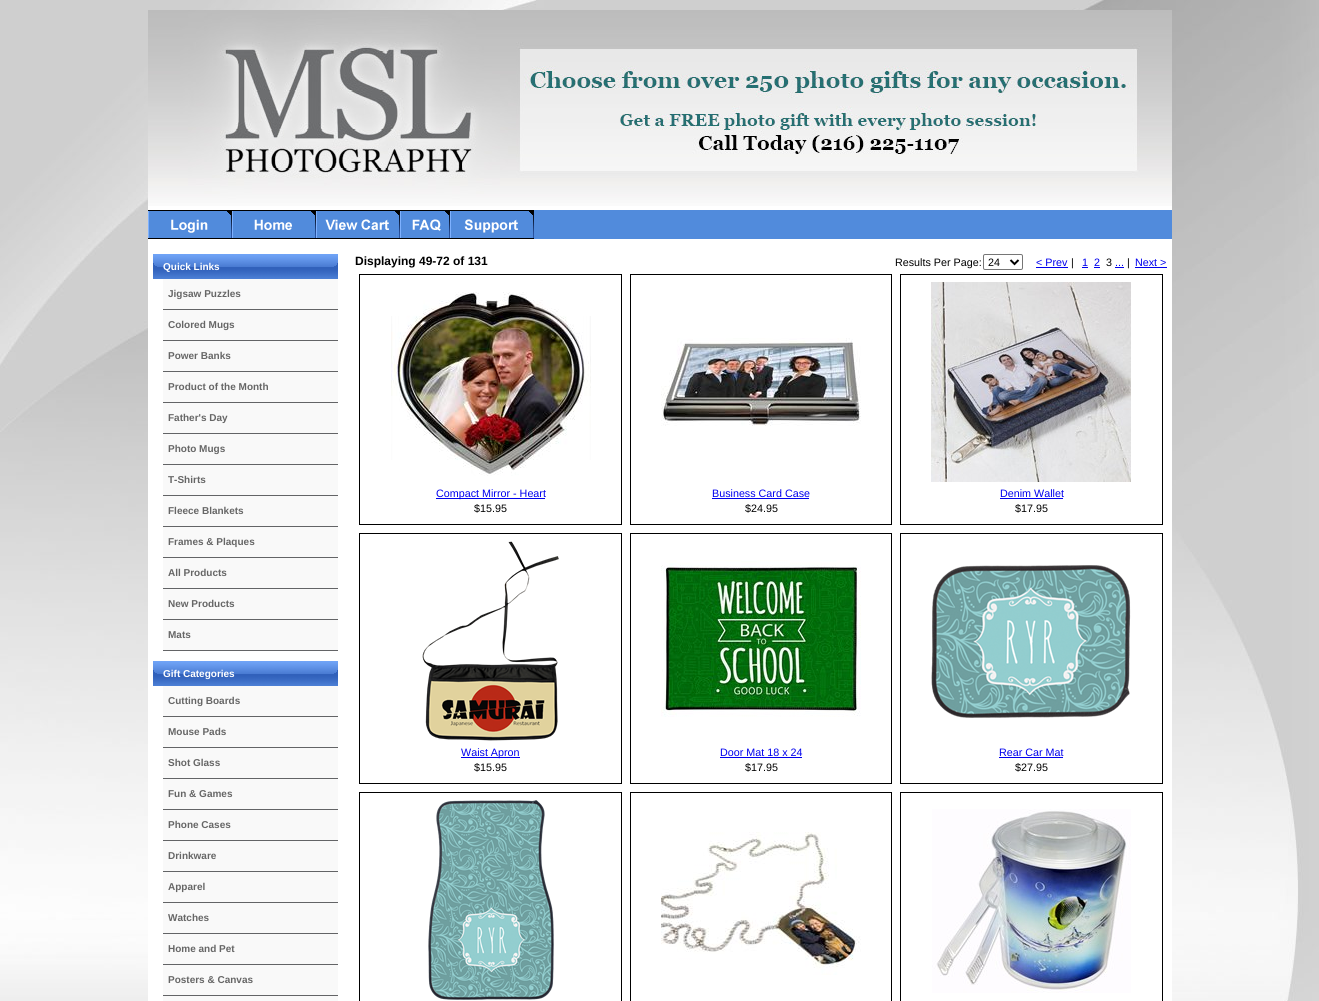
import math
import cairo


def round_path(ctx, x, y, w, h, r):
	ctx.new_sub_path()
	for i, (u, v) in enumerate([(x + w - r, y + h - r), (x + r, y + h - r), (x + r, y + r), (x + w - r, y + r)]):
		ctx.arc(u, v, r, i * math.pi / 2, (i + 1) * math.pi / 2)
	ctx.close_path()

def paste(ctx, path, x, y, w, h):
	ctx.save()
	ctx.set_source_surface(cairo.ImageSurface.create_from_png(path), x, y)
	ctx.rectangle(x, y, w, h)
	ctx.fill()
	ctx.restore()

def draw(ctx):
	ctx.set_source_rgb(1, 1, 1)
	ctx.paint()
	paste(ctx, 'media/1.png', 0, 0, 1319, 1001)
	ctx.set_source_rgb(1, 1, 1)
	ctx.rectangle(148, 206, 1024, 795)
	ctx.fill()
	paste(ctx, 'media/2.png', 148, 10, 1024, 196)
	ctx.set_source_rgb(0.318, 0.545, 0.863)
	ctx.rectangle(534, 210, 638, 29)
	ctx.fill()
	paste(ctx, 'media/3.png', 148, 210, 84, 29)
	paste(ctx, 'media/4.png', 232, 210, 84, 29)
	paste(ctx, 'media/5.png', 316, 210, 84, 29)
	paste(ctx, 'media/6.png', 400, 210, 50, 29)
	paste(ctx, 'media/7.png', 450, 210, 84, 29)
	paste(ctx, 'media/8.png', 153, 254, 185, 25)
	ctx.select_font_face('Liberation Sans', cairo.FONT_SLANT_NORMAL, cairo.FONT_WEIGHT_BOLD)
	ctx.set_font_size(10)
	ctx.set_source_rgb(1, 1, 1)
	ctx.move_to(163, 270)
	ctx.show_text('Quick Links')
	ctx.set_source_rgb(0.973, 0.973, 0.973)
	ctx.rectangle(163, 279, 175, 30)
	ctx.fill()
	ctx.set_source_rgb(0.388, 0.392, 0.4)
	ctx.rectangle(163, 309, 175, 1)
	ctx.fill()
	ctx.set_source_rgb(0.4, 0.4, 0.4)
	ctx.move_to(168, 297)
	ctx.show_text('Jigsaw Puzzles')
	ctx.set_source_rgb(0.973, 0.973, 0.973)
	ctx.rectangle(163, 310, 175, 30)
	ctx.fill()
	ctx.set_source_rgb(0.388, 0.392, 0.4)
	ctx.rectangle(163, 340, 175, 1)
	ctx.fill()
	ctx.set_source_rgb(0.4, 0.4, 0.4)
	ctx.move_to(168, 328)
	ctx.show_text('Colored Mugs')
	ctx.set_source_rgb(0.973, 0.973, 0.973)
	ctx.rectangle(163, 341, 175, 30)
	ctx.fill()
	ctx.set_source_rgb(0.388, 0.392, 0.4)
	ctx.rectangle(163, 371, 175, 1)
	ctx.fill()
	ctx.set_source_rgb(0.4, 0.4, 0.4)
	ctx.move_to(168, 359)
	ctx.show_text('Power Banks')
	ctx.set_source_rgb(0.973, 0.973, 0.973)
	ctx.rectangle(163, 372, 175, 30)
	ctx.fill()
	ctx.set_source_rgb(0.388, 0.392, 0.4)
	ctx.rectangle(163, 402, 175, 1)
	ctx.fill()
	ctx.set_source_rgb(0.4, 0.4, 0.4)
	ctx.move_to(168, 390)
	ctx.show_text('Product of the Month')
	ctx.set_source_rgb(0.973, 0.973, 0.973)
	ctx.rectangle(163, 403, 175, 30)
	ctx.fill()
	ctx.set_source_rgb(0.388, 0.392, 0.4)
	ctx.rectangle(163, 433, 175, 1)
	ctx.fill()
	ctx.set_source_rgb(0.4, 0.4, 0.4)
	ctx.move_to(168, 421)
	ctx.show_text('Father\'s Day')
	ctx.set_source_rgb(0.973, 0.973, 0.973)
	ctx.rectangle(163, 434, 175, 30)
	ctx.fill()
	ctx.set_source_rgb(0.388, 0.392, 0.4)
	ctx.rectangle(163, 464, 175, 1)
	ctx.fill()
	ctx.set_source_rgb(0.4, 0.4, 0.4)
	ctx.move_to(168, 452)
	ctx.show_text('Photo Mugs')
	ctx.set_source_rgb(0.973, 0.973, 0.973)
	ctx.rectangle(163, 465, 175, 30)
	ctx.fill()
	ctx.set_source_rgb(0.388, 0.392, 0.4)
	ctx.rectangle(163, 495, 175, 1)
	ctx.fill()
	ctx.set_source_rgb(0.4, 0.4, 0.4)
	ctx.move_to(168, 483)
	ctx.show_text('T-Shirts')
	ctx.set_source_rgb(0.973, 0.973, 0.973)
	ctx.rectangle(163, 496, 175, 30)
	ctx.fill()
	ctx.set_source_rgb(0.388, 0.392, 0.4)
	ctx.rectangle(163, 526, 175, 1)
	ctx.fill()
	ctx.set_source_rgb(0.4, 0.4, 0.4)
	ctx.move_to(168, 514)
	ctx.show_text('Fleece Blankets')
	ctx.set_source_rgb(0.973, 0.973, 0.973)
	ctx.rectangle(163, 527, 175, 30)
	ctx.fill()
	ctx.set_source_rgb(0.388, 0.392, 0.4)
	ctx.rectangle(163, 557, 175, 1)
	ctx.fill()
	ctx.set_source_rgb(0.4, 0.4, 0.4)
	ctx.move_to(168, 545)
	ctx.show_text('Frames & Plaques')
	ctx.set_source_rgb(0.973, 0.973, 0.973)
	ctx.rectangle(163, 558, 175, 30)
	ctx.fill()
	ctx.set_source_rgb(0.388, 0.392, 0.4)
	ctx.rectangle(163, 588, 175, 1)
	ctx.fill()
	ctx.set_source_rgb(0.4, 0.4, 0.4)
	ctx.move_to(168, 576)
	ctx.show_text('All Products')
	ctx.set_source_rgb(0.973, 0.973, 0.973)
	ctx.rectangle(163, 589, 175, 30)
	ctx.fill()
	ctx.set_source_rgb(0.388, 0.392, 0.4)
	ctx.rectangle(163, 619, 175, 1)
	ctx.fill()
	ctx.set_source_rgb(0.4, 0.4, 0.4)
	ctx.move_to(168, 607)
	ctx.show_text('New Products')
	ctx.set_source_rgb(0.973, 0.973, 0.973)
	ctx.rectangle(163, 620, 175, 30)
	ctx.fill()
	ctx.set_source_rgb(0.388, 0.392, 0.4)
	ctx.rectangle(163, 650, 175, 1)
	ctx.fill()
	ctx.set_source_rgb(0.4, 0.4, 0.4)
	ctx.move_to(168, 638)
	ctx.show_text('Mats')
	paste(ctx, 'media/8.png', 153, 661, 185, 25)
	ctx.set_source_rgb(1, 1, 1)
	ctx.move_to(163, 677)
	ctx.show_text('Gift Categories')
	ctx.set_source_rgb(0.973, 0.973, 0.973)
	ctx.rectangle(163, 686, 175, 30)
	ctx.fill()
	ctx.set_source_rgb(0.388, 0.392, 0.4)
	ctx.rectangle(163, 716, 175, 1)
	ctx.fill()
	ctx.set_source_rgb(0.4, 0.4, 0.4)
	ctx.move_to(168, 704)
	ctx.show_text('Cutting Boards')
	ctx.set_source_rgb(0.973, 0.973, 0.973)
	ctx.rectangle(163, 717, 175, 30)
	ctx.fill()
	ctx.set_source_rgb(0.388, 0.392, 0.4)
	ctx.rectangle(163, 747, 175, 1)
	ctx.fill()
	ctx.set_source_rgb(0.4, 0.4, 0.4)
	ctx.move_to(168, 735)
	ctx.show_text('Mouse Pads')
	ctx.set_source_rgb(0.973, 0.973, 0.973)
	ctx.rectangle(163, 748, 175, 30)
	ctx.fill()
	ctx.set_source_rgb(0.388, 0.392, 0.4)
	ctx.rectangle(163, 778, 175, 1)
	ctx.fill()
	ctx.set_source_rgb(0.4, 0.4, 0.4)
	ctx.move_to(168, 766)
	ctx.show_text('Shot Glass')
	ctx.set_source_rgb(0.973, 0.973, 0.973)
	ctx.rectangle(163, 779, 175, 30)
	ctx.fill()
	ctx.set_source_rgb(0.388, 0.392, 0.4)
	ctx.rectangle(163, 809, 175, 1)
	ctx.fill()
	ctx.set_source_rgb(0.4, 0.4, 0.4)
	ctx.move_to(168, 797)
	ctx.show_text('Fun & Games')
	ctx.set_source_rgb(0.973, 0.973, 0.973)
	ctx.rectangle(163, 810, 175, 30)
	ctx.fill()
	ctx.set_source_rgb(0.388, 0.392, 0.4)
	ctx.rectangle(163, 840, 175, 1)
	ctx.fill()
	ctx.set_source_rgb(0.4, 0.4, 0.4)
	ctx.move_to(168, 828)
	ctx.show_text('Phone Cases')
	ctx.set_source_rgb(0.973, 0.973, 0.973)
	ctx.rectangle(163, 841, 175, 30)
	ctx.fill()
	ctx.set_source_rgb(0.388, 0.392, 0.4)
	ctx.rectangle(163, 871, 175, 1)
	ctx.fill()
	ctx.set_source_rgb(0.4, 0.4, 0.4)
	ctx.move_to(168, 859)
	ctx.show_text('Drinkware')
	ctx.set_source_rgb(0.973, 0.973, 0.973)
	ctx.rectangle(163, 872, 175, 30)
	ctx.fill()
	ctx.set_source_rgb(0.388, 0.392, 0.4)
	ctx.rectangle(163, 902, 175, 1)
	ctx.fill()
	ctx.set_source_rgb(0.4, 0.4, 0.4)
	ctx.move_to(168, 890)
	ctx.show_text('Apparel')
	ctx.set_source_rgb(0.973, 0.973, 0.973)
	ctx.rectangle(163, 903, 175, 30)
	ctx.fill()
	ctx.set_source_rgb(0.388, 0.392, 0.4)
	ctx.rectangle(163, 933, 175, 1)
	ctx.fill()
	ctx.set_source_rgb(0.4, 0.4, 0.4)
	ctx.move_to(168, 921)
	ctx.show_text('Watches')
	ctx.set_source_rgb(0.973, 0.973, 0.973)
	ctx.rectangle(163, 934, 175, 30)
	ctx.fill()
	ctx.set_source_rgb(0.388, 0.392, 0.4)
	ctx.rectangle(163, 964, 175, 1)
	ctx.fill()
	ctx.set_source_rgb(0.4, 0.4, 0.4)
	ctx.move_to(168, 952)
	ctx.show_text('Home and Pet')
	ctx.set_source_rgb(0.973, 0.973, 0.973)
	ctx.rectangle(163, 965, 175, 30)
	ctx.fill()
	ctx.set_source_rgb(0.388, 0.392, 0.4)
	ctx.rectangle(163, 995, 175, 1)
	ctx.fill()
	ctx.set_source_rgb(0.4, 0.4, 0.4)
	ctx.move_to(168, 983)
	ctx.show_text('Posters & Canvas')
	ctx.set_source_rgb(0.973, 0.973, 0.973)
	ctx.rectangle(163, 996, 175, 5)
	ctx.fill()
	ctx.set_font_size(12)
	ctx.set_source_rgb(0, 0, 0)
	ctx.move_to(355, 265)
	ctx.show_text('Displaying 49-72 of 131')
	ctx.select_font_face('Liberation Sans')
	ctx.set_font_size(10.75)
	ctx.move_to(895, 266)
	ctx.show_text('Results Per Page:')
	round_path(ctx, 983.5, 254.5, 39, 15, 1.5)
	ctx.set_source_rgb(0.463, 0.463, 0.463)
	ctx.set_line_width(1)
	ctx.stroke()
	ctx.new_path()
	ctx.move_to(1010.5, 260)
	ctx.line_to(1014.5, 264)
	ctx.line_to(1018.5, 260)
	ctx.set_source_rgb(0, 0, 0)
	ctx.set_line_width(2)
	ctx.stroke()
	ctx.move_to(988, 266)
	ctx.show_text('24')
	ctx.set_source_rgb(0, 0, 0.933)
	ctx.move_to(1036, 266)
	ctx.show_text('< Prev')
	ctx.rectangle(1036, 267, 32, 1)
	ctx.fill()
	ctx.set_source_rgb(0, 0, 0)
	ctx.move_to(1071, 266)
	ctx.show_text('|')
	ctx.set_source_rgb(0, 0, 0.933)
	ctx.move_to(1082, 266)
	ctx.show_text('1')
	ctx.rectangle(1082, 267, 6, 1)
	ctx.fill()
	ctx.move_to(1094, 266)
	ctx.show_text('2')
	ctx.rectangle(1094, 267, 6, 1)
	ctx.fill()
	ctx.set_source_rgb(0, 0, 0)
	ctx.move_to(1106, 266)
	ctx.show_text('3')
	ctx.set_source_rgb(0, 0, 0.933)
	ctx.move_to(1115, 266)
	ctx.show_text('...')
	ctx.rectangle(1115, 267, 9, 1)
	ctx.fill()
	ctx.set_source_rgb(0, 0, 0)
	ctx.move_to(1127, 266)
	ctx.show_text('|')
	ctx.set_source_rgb(0, 0, 0.933)
	ctx.move_to(1135, 266)
	ctx.show_text('Next >')
	ctx.rectangle(1135, 267, 32, 1)
	ctx.fill()
	ctx.rectangle(359.5, 274.5, 262, 250)
	ctx.set_source_rgb(0, 0, 0)
	ctx.set_line_width(1)
	ctx.stroke()
	paste(ctx, 'media/9.png', 391, 292, 200, 184)
	ctx.set_source_rgb(0, 0, 0.933)
	ctx.rectangle(436, 498, 109, 1)
	ctx.fill()
	ctx.move_to(436, 497)
	ctx.show_text('Compact Mirror - Heart')
	ctx.set_source_rgb(0, 0, 0)
	ctx.move_to(474, 512)
	ctx.show_text('$15.95')
	ctx.rectangle(630.5, 274.5, 261, 250)
	ctx.stroke()
	paste(ctx, 'media/10.png', 661, 338, 200, 88)
	ctx.set_source_rgb(0, 0, 0.933)
	ctx.move_to(712, 497)
	ctx.show_text('Business Card Case')
	ctx.rectangle(712, 498, 97, 1)
	ctx.fill()
	ctx.set_source_rgb(0, 0, 0)
	ctx.move_to(745, 512)
	ctx.show_text('$24.95')
	ctx.rectangle(900.5, 274.5, 262, 250)
	ctx.stroke()
	paste(ctx, 'media/11.png', 931, 282, 200, 200)
	ctx.set_source_rgb(0, 0, 0.933)
	ctx.move_to(1000, 497)
	ctx.show_text('Denim Wallet')
	ctx.rectangle(1000, 498, 63, 1)
	ctx.fill()
	ctx.set_source_rgb(0, 0, 0)
	ctx.move_to(1015, 512)
	ctx.show_text('$17.95')
	ctx.rectangle(359.5, 533.5, 262, 250)
	ctx.stroke()
	paste(ctx, 'media/12.png', 422, 541, 137, 200)
	ctx.set_source_rgb(0, 0, 0.933)
	ctx.rectangle(461, 757, 59, 1)
	ctx.fill()
	ctx.move_to(461, 756)
	ctx.show_text('Waist Apron')
	ctx.set_source_rgb(0, 0, 0)
	ctx.move_to(474, 771)
	ctx.show_text('$15.95')
	ctx.rectangle(630.5, 533.5, 261, 250)
	ctx.stroke()
	paste(ctx, 'media/13.png', 661, 560, 200, 157)
	ctx.set_source_rgb(0, 0, 0.933)
	ctx.move_to(720, 756)
	ctx.show_text('Door Mat 18 x 24')
	ctx.rectangle(720, 757, 82, 1)
	ctx.fill()
	ctx.set_source_rgb(0, 0, 0)
	ctx.move_to(745, 771)
	ctx.show_text('$17.95')
	ctx.rectangle(900.5, 533.5, 262, 250)
	ctx.stroke()
	paste(ctx, 'media/14.png', 931, 565, 200, 153)
	ctx.set_source_rgb(0, 0, 0.933)
	ctx.move_to(999, 756)
	ctx.show_text('Rear Car Mat')
	ctx.rectangle(999, 757, 64, 1)
	ctx.fill()
	ctx.set_source_rgb(0, 0, 0)
	ctx.move_to(1015, 771)
	ctx.show_text('$27.95')
	ctx.rectangle(359.5, 792.5, 262, 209)
	ctx.stroke()
	paste(ctx, 'media/15.png', 428, 800, 126, 200)
	ctx.rectangle(630.5, 792.5, 261, 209)
	ctx.stroke()
	paste(ctx, 'media/16.png', 661, 832, 200, 143)
	ctx.rectangle(900.5, 792.5, 262, 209)
	ctx.stroke()
	paste(ctx, 'media/17.png', 932, 809, 199, 184)


surface = cairo.ImageSurface(cairo.FORMAT_RGB24, 1319, 1001)
ctx = cairo.Context(surface)
options = cairo.FontOptions()
options.set_hint_metrics(cairo.HINT_METRICS_OFF)
options.set_hint_style(cairo.HINT_STYLE_NONE)
ctx.set_font_options(options)
ctx.set_miter_limit(4)
draw(ctx)
surface.write_to_png('image.png')
